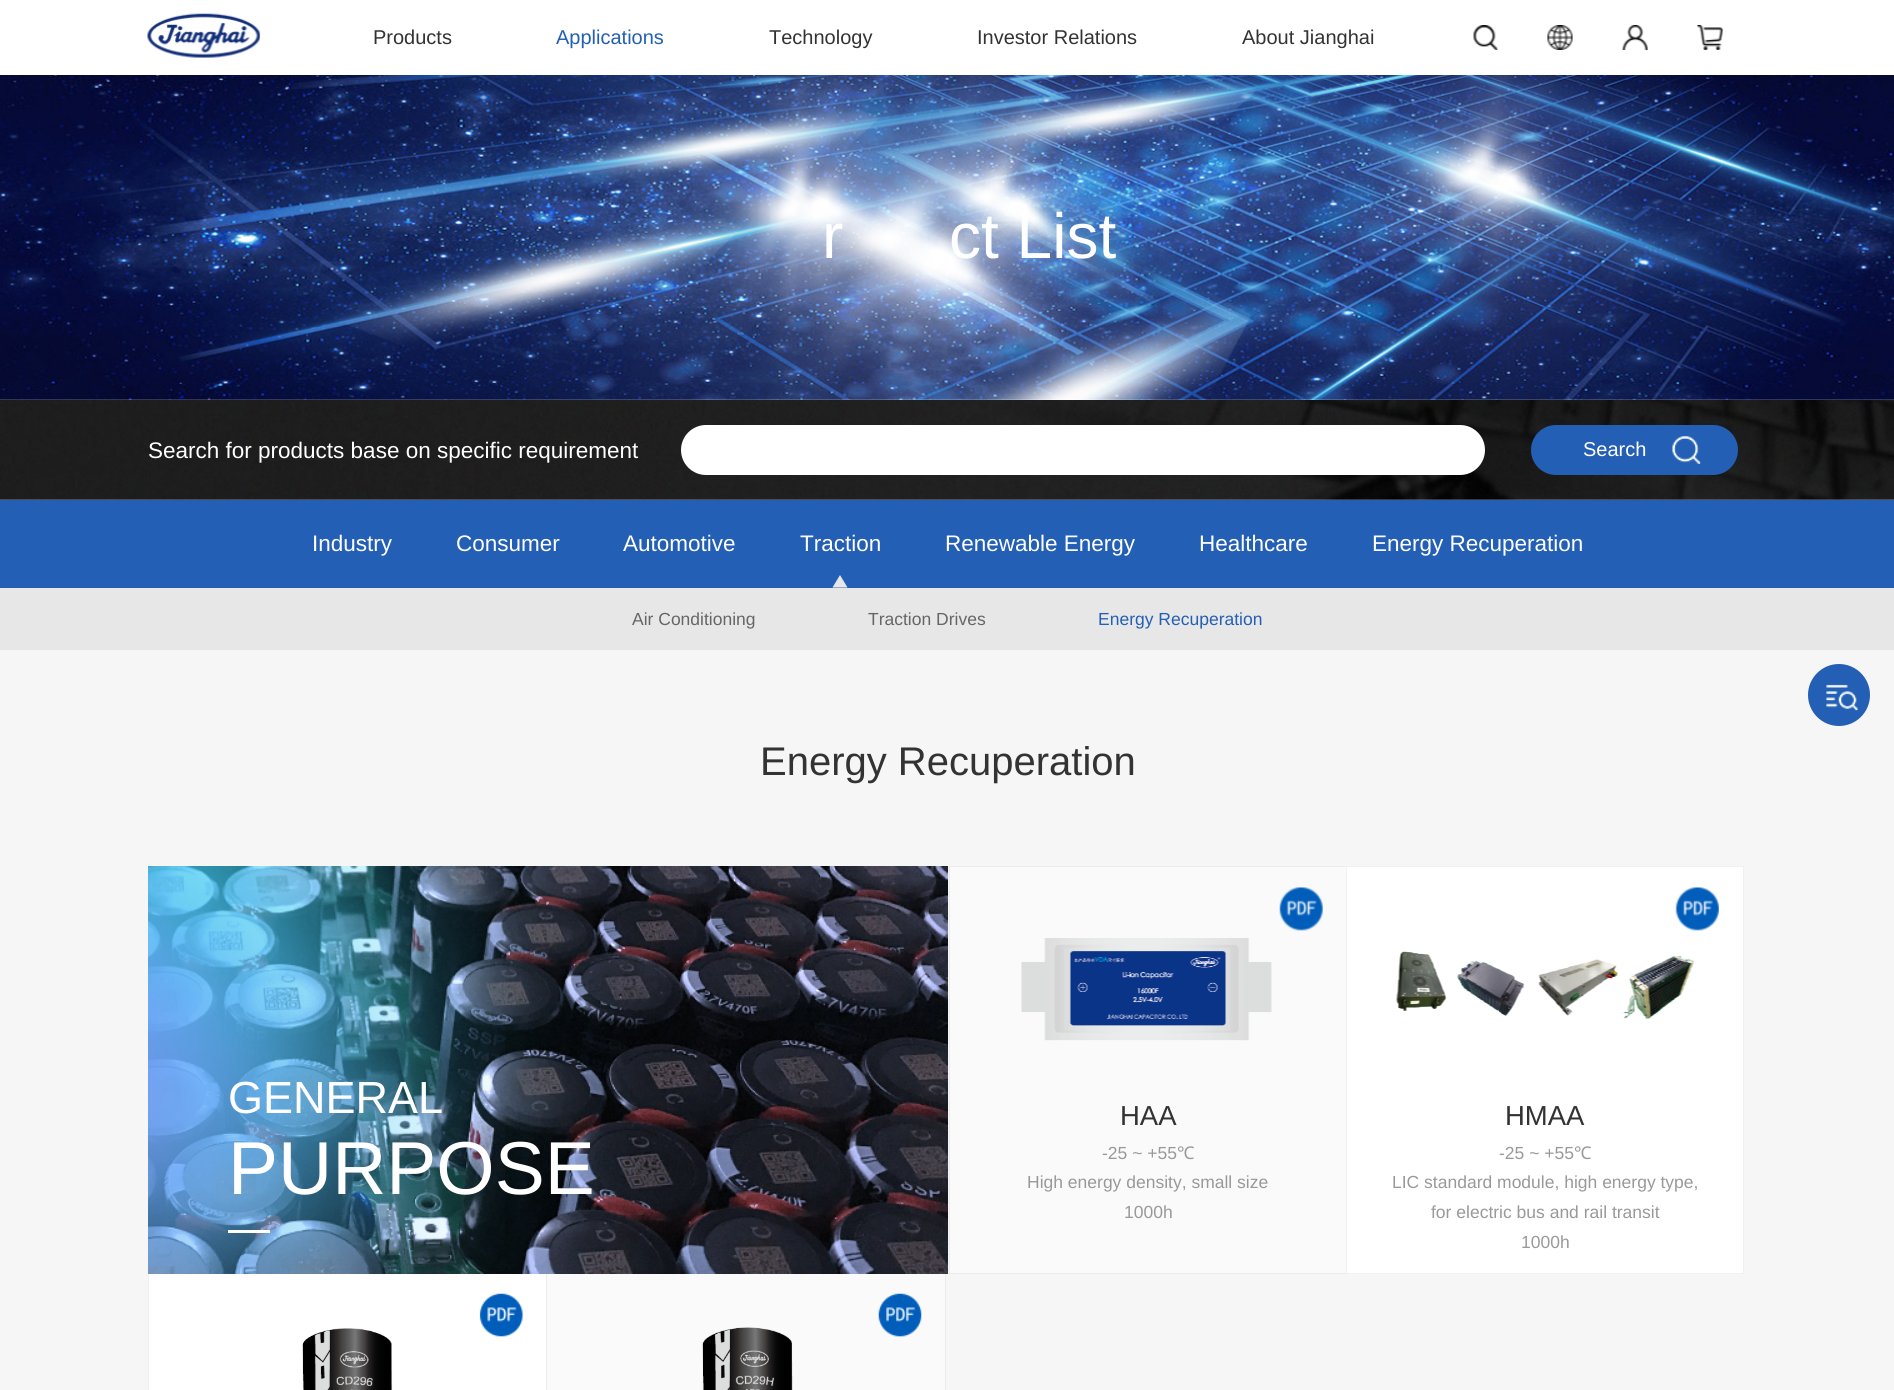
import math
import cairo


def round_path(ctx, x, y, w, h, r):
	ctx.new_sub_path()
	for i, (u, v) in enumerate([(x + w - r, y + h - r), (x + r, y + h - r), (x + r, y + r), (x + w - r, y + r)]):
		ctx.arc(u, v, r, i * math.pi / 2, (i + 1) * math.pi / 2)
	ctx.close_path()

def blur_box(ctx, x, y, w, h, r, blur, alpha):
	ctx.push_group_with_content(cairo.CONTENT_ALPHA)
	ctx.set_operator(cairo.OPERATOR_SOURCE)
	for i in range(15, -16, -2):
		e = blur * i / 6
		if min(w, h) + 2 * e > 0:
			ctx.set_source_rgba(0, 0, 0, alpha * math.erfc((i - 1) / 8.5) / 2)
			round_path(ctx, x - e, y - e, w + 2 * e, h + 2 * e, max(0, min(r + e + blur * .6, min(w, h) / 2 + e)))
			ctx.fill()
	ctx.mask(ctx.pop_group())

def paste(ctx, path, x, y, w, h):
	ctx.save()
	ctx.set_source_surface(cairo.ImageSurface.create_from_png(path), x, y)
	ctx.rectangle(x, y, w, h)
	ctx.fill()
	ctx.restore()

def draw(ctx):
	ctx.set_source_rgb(1, 1, 1)
	ctx.paint()
	paste(ctx, 'media/6.png', 0, 75, 1894, 325)
	ctx.save()
	ctx.rectangle(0, 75, 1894, 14)
	ctx.clip()
	ctx.set_source_rgb(0, 0, 0)
	blur_box(ctx, 0, 3, 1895, 75, 0, 12.5, 0.1)
	ctx.restore()
	paste(ctx, 'media/1.png', 147, 13, 113, 45)
	ctx.select_font_face('Liberation Sans')
	ctx.set_font_size(20)
	ctx.set_source_rgb(0.2, 0.2, 0.2)
	ctx.move_to(373, 44)
	ctx.show_text('Products')
	ctx.set_source_rgb(0.137, 0.373, 0.706)
	ctx.move_to(556, 44)
	ctx.show_text('Applications')
	ctx.set_source_rgb(0.2, 0.2, 0.2)
	for x, y, s in [
		(769, 44, 'Technology'),
		(977, 44, 'Investor Relations'),
		(1242, 44, 'About Jianghai'),
	]:
		ctx.move_to(x, y)
		ctx.show_text(s)
	paste(ctx, 'media/2.png', 1473, 25, 25, 25)
	paste(ctx, 'media/3.png', 1547, 25, 26, 25)
	paste(ctx, 'media/4.png', 1622, 25, 26, 25)
	paste(ctx, 'media/5.png', 1697, 25, 26, 25)
	ctx.set_font_size(64)
	ctx.set_source_rgb(1, 1, 1)
	ctx.move_to(822, 258)
	ctx.show_text('r')
	ctx.move_to(949, 258)
	ctx.show_text('ct List')
	paste(ctx, 'media/7.png', 0, 400, 1894, 100)
	ctx.set_font_size(22.5)
	ctx.move_to(148, 458)
	ctx.show_text('Search for products base on specific requirement')
	round_path(ctx, 681, 425, 804, 50, 25)
	ctx.fill()
	ctx.set_source_rgb(0.137, 0.373, 0.706)
	round_path(ctx, 1531, 425, 207, 50, 25)
	ctx.fill()
	paste(ctx, 'media/8.png', 1672, 436, 29, 28)
	ctx.set_font_size(20)
	ctx.set_source_rgb(1, 1, 1)
	ctx.move_to(1583, 456)
	ctx.show_text('Search')
	ctx.set_source_rgb(0.961, 0.961, 0.961)
	ctx.rectangle(0, 650, 1894, 740)
	ctx.fill()
	ctx.set_source_rgb(0.137, 0.373, 0.706)
	ctx.rectangle(0, 500, 1894, 88)
	ctx.fill()
	ctx.set_font_size(22.5)
	ctx.set_source_rgb(1, 1, 1)
	for x, y, s in [
		(312, 551, 'Industry'),
		(456, 551, 'Consumer'),
		(623, 551, 'Automotive'),
		(800, 551, 'Traction'),
	]:
		ctx.move_to(x, y)
		ctx.show_text(s)
	ctx.set_source_rgb(0.906, 0.906, 0.906)
	ctx.new_path()
	ctx.move_to(847.5, 587.5)
	ctx.line_to(832.5, 587.5)
	ctx.line_to(840, 575)
	ctx.close_path()
	ctx.fill()
	ctx.set_source_rgb(1, 1, 1)
	for x, y, s in [
		(945, 551, 'Renewable Energy'),
		(1199, 551, 'Healthcare'),
		(1372, 551, 'Energy Recuperation'),
	]:
		ctx.move_to(x, y)
		ctx.show_text(s)
	ctx.set_source_rgb(0.906, 0.906, 0.906)
	ctx.rectangle(0, 588, 1894, 62)
	ctx.fill()
	ctx.set_font_size(17.5)
	ctx.set_source_rgb(0.4, 0.4, 0.4)
	ctx.move_to(632, 625)
	ctx.show_text('Air Conditioning')
	ctx.move_to(868, 625)
	ctx.show_text('Traction Drives')
	ctx.set_source_rgb(0.137, 0.373, 0.706)
	ctx.move_to(1098, 625)
	ctx.show_text('Energy Recuperation')
	ctx.set_font_size(40)
	ctx.set_source_rgb(0.2, 0.2, 0.2)
	ctx.move_to(760, 775)
	ctx.show_text('Energy Recuperation')
	paste(ctx, 'media/9.png', 148, 866, 800, 408)
	ctx.set_font_size(45)
	ctx.set_source_rgb(1, 1, 1)
	ctx.move_to(228, 1113)
	ctx.show_text('GENERAL')
	ctx.set_font_size(75)
	ctx.move_to(228, 1194)
	ctx.show_text('PURPOSE')
	ctx.rectangle(228, 1230, 42, 3)
	ctx.fill()
	ctx.set_source_rgb(0.98, 0.98, 0.98)
	ctx.rectangle(950, 867, 396, 406)
	ctx.fill()
	ctx.rectangle(949.5, 866.5, 398, 407)
	ctx.set_source_rgb(0.922, 0.922, 0.922)
	ctx.set_line_width(1)
	ctx.stroke()
	paste(ctx, 'media/10.png', 1279, 887, 44, 44)
	paste(ctx, 'media/11.png', 1021, 938, 251, 103)
	ctx.set_font_size(27.5)
	ctx.set_source_rgb(0.2, 0.2, 0.2)
	ctx.move_to(1120, 1125)
	ctx.show_text('HAA')
	ctx.set_font_size(17.5)
	ctx.set_source_rgb(0.6, 0.6, 0.6)
	ctx.move_to(1102, 1159)
	ctx.show_text('-25 ~ +55')
	ctx.select_font_face('Noto Sans')
	ctx.move_to(1177, 1159)
	ctx.show_text('℃')
	ctx.select_font_face('Liberation Sans')
	ctx.move_to(1027, 1188)
	ctx.show_text('High energy density, small size')
	ctx.move_to(1124, 1218)
	ctx.show_text('1000h')
	ctx.set_source_rgb(1, 1, 1)
	ctx.rectangle(1346.5, 866.5, 397, 407)
	ctx.fill_preserve()
	ctx.set_source_rgb(0.945, 0.945, 0.945)
	ctx.stroke()
	paste(ctx, 'media/12.png', 1675, 887, 44, 44)
	paste(ctx, 'media/13.png', 1396, 951, 300, 68)
	ctx.set_font_size(27.5)
	ctx.set_source_rgb(0.2, 0.2, 0.2)
	ctx.move_to(1505, 1125)
	ctx.show_text('HMAA')
	ctx.set_font_size(17.5)
	ctx.set_source_rgb(0.6, 0.6, 0.6)
	ctx.move_to(1499, 1159)
	ctx.show_text('-25 ~ +55')
	ctx.select_font_face('Noto Sans')
	ctx.move_to(1574, 1159)
	ctx.show_text('℃')
	ctx.select_font_face('Liberation Sans')
	for x, y, s in [
		(1392, 1188, 'LIC standard module, high energy type,'),
		(1431, 1218, 'for electric bus and rail transit'),
		(1521, 1248, '1000h'),
	]:
		ctx.move_to(x, y)
		ctx.show_text(s)
	ctx.set_source_rgb(1, 1, 1)
	ctx.rectangle(149, 1274, 397, 116)
	ctx.fill()
	ctx.save()
	ctx.rectangle(146, 1274, 1603, 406)
	ctx.clip()
	ctx.rectangle(148.5, 1273.5, 399, 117)
	ctx.set_source_rgb(0.945, 0.945, 0.945)
	ctx.stroke()
	ctx.restore()
	paste(ctx, 'media/14.png', 479, 1293, 44, 44)
	paste(ctx, 'media/15.png', 302, 1328, 91, 62)
	ctx.set_source_rgb(0.98, 0.98, 0.98)
	ctx.rectangle(547, 1274, 398, 116)
	ctx.fill()
	ctx.save()
	ctx.rectangle(146, 1274, 1603, 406)
	ctx.clip()
	ctx.rectangle(546.5, 1273.5, 399, 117)
	ctx.set_source_rgb(0.922, 0.922, 0.922)
	ctx.stroke()
	ctx.restore()
	paste(ctx, 'media/16.png', 878, 1293, 44, 44)
	paste(ctx, 'media/17.png', 702, 1327, 91, 63)
	ctx.set_source_rgb(0.137, 0.373, 0.706)
	ctx.arc(1839, 695, 31, 0, 2 * math.pi)
	ctx.fill()
	paste(ctx, 'media/18.png', 1826, 684, 32, 27)


surface = cairo.ImageSurface(cairo.FORMAT_RGB24, 1894, 1390)
ctx = cairo.Context(surface)
options = cairo.FontOptions()
options.set_hint_metrics(cairo.HINT_METRICS_OFF)
options.set_hint_style(cairo.HINT_STYLE_NONE)
ctx.set_font_options(options)
ctx.set_miter_limit(4)
draw(ctx)
surface.write_to_png('image.png')
